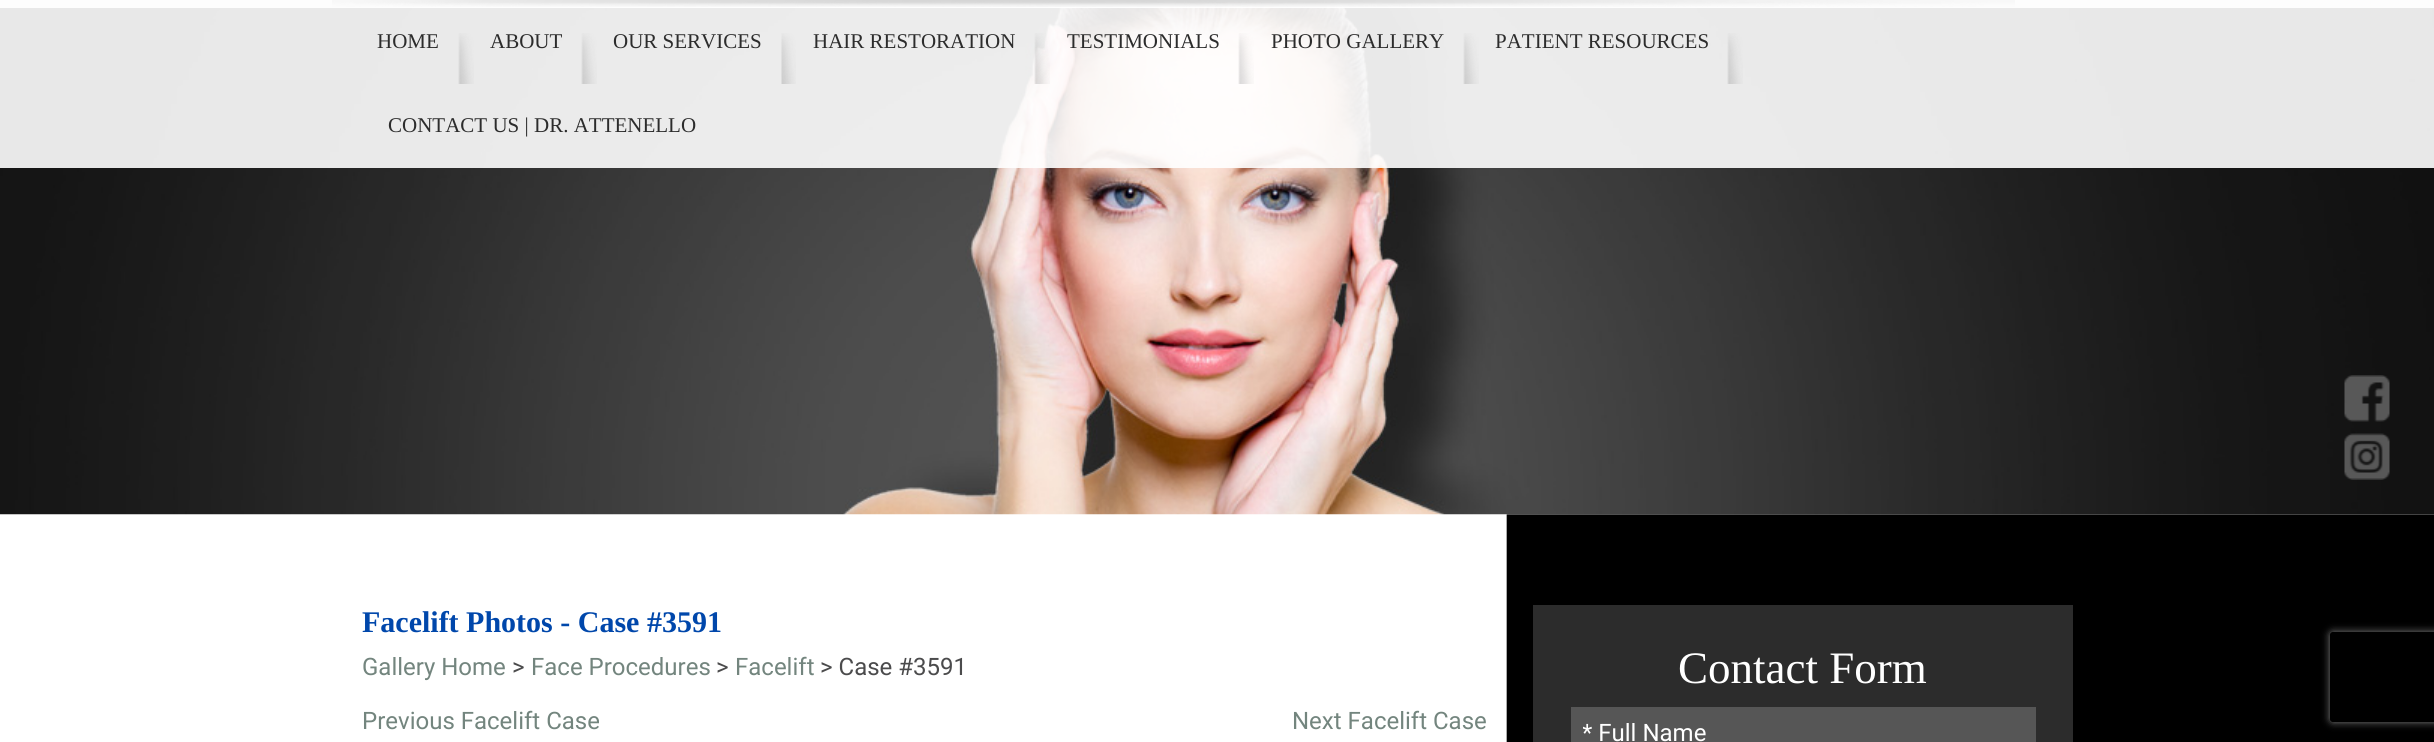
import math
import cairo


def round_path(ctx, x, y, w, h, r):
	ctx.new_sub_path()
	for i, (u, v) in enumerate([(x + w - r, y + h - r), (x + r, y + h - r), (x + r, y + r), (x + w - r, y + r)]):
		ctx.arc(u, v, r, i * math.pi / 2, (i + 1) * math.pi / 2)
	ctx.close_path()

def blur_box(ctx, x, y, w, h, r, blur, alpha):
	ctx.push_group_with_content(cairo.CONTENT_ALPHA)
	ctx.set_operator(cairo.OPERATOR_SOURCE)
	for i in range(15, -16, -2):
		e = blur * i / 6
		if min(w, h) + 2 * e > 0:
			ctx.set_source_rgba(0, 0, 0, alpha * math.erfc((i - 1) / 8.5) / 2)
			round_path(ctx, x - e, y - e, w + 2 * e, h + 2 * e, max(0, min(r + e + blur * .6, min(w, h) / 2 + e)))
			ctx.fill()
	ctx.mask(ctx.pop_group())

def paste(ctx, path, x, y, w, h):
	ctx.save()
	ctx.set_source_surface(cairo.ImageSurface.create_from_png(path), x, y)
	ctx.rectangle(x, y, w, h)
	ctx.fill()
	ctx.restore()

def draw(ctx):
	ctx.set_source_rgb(1, 1, 1)
	ctx.paint()
	paste(ctx, 'media/1.png', 0, 0, 2434, 515)
	ctx.set_source_rgba(1, 1, 1, 0.9)
	ctx.rectangle(0, 0, 2434, 8)
	ctx.fill()
	ctx.rectangle(0, 0, 2434, 168)
	ctx.fill()
	paste(ctx, 'media/2.png', 332, 0, 1683, 7)
	ctx.select_font_face('Liberation Serif')
	ctx.set_font_size(21)
	ctx.set_source_rgb(0.173, 0.173, 0.173)
	ctx.move_to(377, 48)
	ctx.show_text('HOME')
	paste(ctx, 'media/3.png', 458, 33, 16, 51)
	ctx.move_to(490, 48)
	ctx.show_text('ABOUT')
	paste(ctx, 'media/4.png', 581, 33, 16, 51)
	ctx.move_to(613, 48)
	ctx.show_text('OUR SERVICES')
	paste(ctx, 'media/5.png', 781, 33, 15, 51)
	ctx.move_to(813, 48)
	ctx.show_text('HAIR RESTORATION')
	paste(ctx, 'media/6.png', 1034, 33, 16, 51)
	ctx.move_to(1067, 48)
	ctx.show_text('TESTIMONIALS')
	paste(ctx, 'media/7.png', 1238, 33, 16, 51)
	ctx.move_to(1271, 48)
	ctx.show_text('PHOTO GALLERY')
	paste(ctx, 'media/8.png', 1463, 33, 16, 51)
	ctx.move_to(1495, 48)
	ctx.show_text('PATIENT RESOURCES')
	paste(ctx, 'media/9.png', 1727, 33, 16, 51)
	ctx.move_to(388, 132)
	ctx.show_text('CONTACT US | DR. ATTENELLO')
	paste(ctx, 'media/10.png', 2344, 375, 46, 47)
	paste(ctx, 'media/11.png', 2344, 433, 46, 47)
	paste(ctx, 'media/12.png', 0, 514, 2434, 228)
	ctx.select_font_face('Liberation Serif', cairo.FONT_SLANT_NORMAL, cairo.FONT_WEIGHT_BOLD)
	ctx.set_font_size(30)
	ctx.set_source_rgb(0, 0.278, 0.671)
	ctx.move_to(362, 632)
	ctx.show_text('Facelift Photos - Case #3591')
	ctx.select_font_face('Roboto')
	ctx.set_font_size(24)
	ctx.set_source_rgb(0.451, 0.522, 0.494)
	ctx.move_to(362, 675)
	ctx.show_text('Gallery Home')
	ctx.set_source_rgb(0.294, 0.294, 0.298)
	ctx.move_to(512, 675)
	ctx.show_text('>')
	ctx.set_source_rgb(0.451, 0.522, 0.494)
	ctx.move_to(531, 675)
	ctx.show_text('Face Procedures')
	ctx.set_source_rgb(0.294, 0.294, 0.298)
	ctx.move_to(716, 675)
	ctx.show_text('>')
	ctx.set_source_rgb(0.451, 0.522, 0.494)
	ctx.move_to(735, 675)
	ctx.show_text('Facelift')
	ctx.set_source_rgb(0.294, 0.294, 0.298)
	ctx.move_to(820, 675)
	ctx.show_text('> Case #3591')
	ctx.set_source_rgb(0.451, 0.522, 0.494)
	ctx.move_to(362, 729)
	ctx.show_text('Previous Facelift Case')
	ctx.move_to(1292, 729)
	ctx.show_text('Next Facelift Case')
	ctx.set_source_rgb(0.173, 0.173, 0.173)
	ctx.rectangle(1533, 605, 540, 137)
	ctx.fill()
	ctx.select_font_face('Liberation Serif')
	ctx.set_font_size(45)
	ctx.set_source_rgb(1, 1, 1)
	ctx.move_to(1678, 683)
	ctx.show_text('Contact Form')
	ctx.set_source_rgb(0.337, 0.337, 0.337)
	ctx.rectangle(1571, 707, 465, 35)
	ctx.fill()
	ctx.save()
	ctx.rectangle(1583, 719, 441, 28)
	ctx.clip()
	ctx.select_font_face('Roboto')
	ctx.set_font_size(24)
	ctx.set_source_rgb(1, 1, 1)
	ctx.move_to(1582, 741)
	ctx.show_text('* Full Name')
	ctx.restore()
	ctx.save()
	ctx.set_fill_rule(cairo.FILL_RULE_EVEN_ODD)
	ctx.new_path()
	ctx.move_to(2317, 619)
	ctx.line_to(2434, 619)
	ctx.line_to(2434, 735)
	ctx.line_to(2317, 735)
	ctx.close_path()
	ctx.move_to(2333, 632)
	ctx.line_to(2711, 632)
	ctx.curve_to(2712.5, 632, 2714, 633.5, 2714, 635)
	ctx.line_to(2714, 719)
	ctx.curve_to(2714, 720.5, 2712.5, 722, 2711, 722)
	ctx.line_to(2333, 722)
	ctx.curve_to(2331.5, 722, 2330, 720.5, 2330, 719)
	ctx.line_to(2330, 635)
	ctx.curve_to(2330, 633.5, 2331.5, 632, 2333, 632)
	ctx.close_path()
	ctx.clip()
	ctx.set_source_rgb(0.502, 0.502, 0.502)
	blur_box(ctx, 2330, 632, 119, 90, 3, 4, 1)
	ctx.restore()


surface = cairo.ImageSurface(cairo.FORMAT_RGB24, 2434, 742)
ctx = cairo.Context(surface)
options = cairo.FontOptions()
options.set_hint_metrics(cairo.HINT_METRICS_OFF)
options.set_hint_style(cairo.HINT_STYLE_NONE)
ctx.set_font_options(options)
ctx.set_miter_limit(4)
draw(ctx)
surface.write_to_png('image.png')
